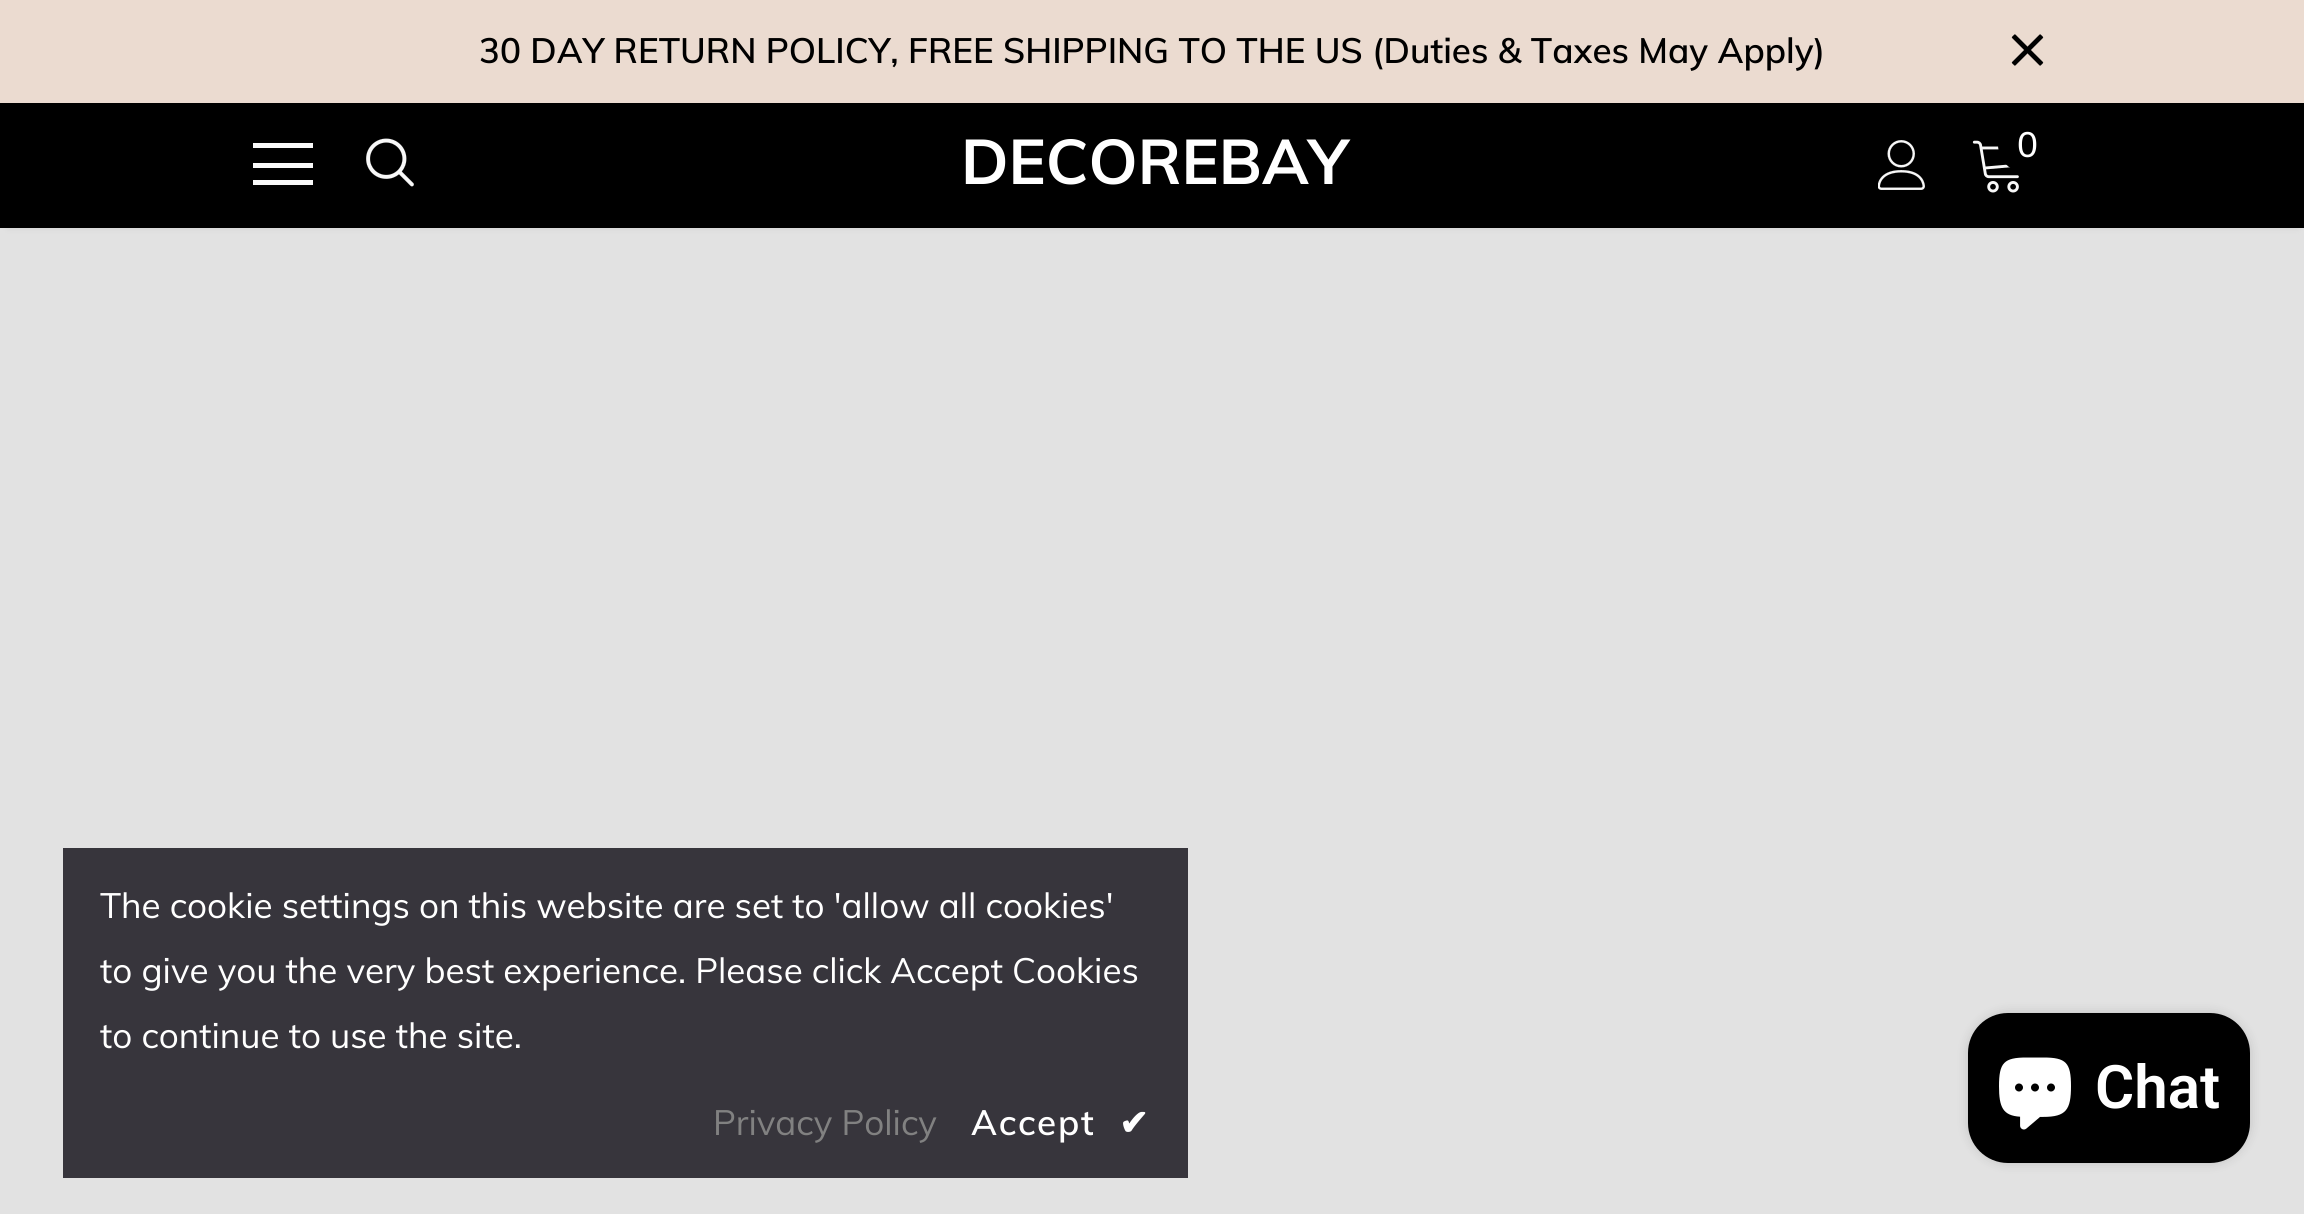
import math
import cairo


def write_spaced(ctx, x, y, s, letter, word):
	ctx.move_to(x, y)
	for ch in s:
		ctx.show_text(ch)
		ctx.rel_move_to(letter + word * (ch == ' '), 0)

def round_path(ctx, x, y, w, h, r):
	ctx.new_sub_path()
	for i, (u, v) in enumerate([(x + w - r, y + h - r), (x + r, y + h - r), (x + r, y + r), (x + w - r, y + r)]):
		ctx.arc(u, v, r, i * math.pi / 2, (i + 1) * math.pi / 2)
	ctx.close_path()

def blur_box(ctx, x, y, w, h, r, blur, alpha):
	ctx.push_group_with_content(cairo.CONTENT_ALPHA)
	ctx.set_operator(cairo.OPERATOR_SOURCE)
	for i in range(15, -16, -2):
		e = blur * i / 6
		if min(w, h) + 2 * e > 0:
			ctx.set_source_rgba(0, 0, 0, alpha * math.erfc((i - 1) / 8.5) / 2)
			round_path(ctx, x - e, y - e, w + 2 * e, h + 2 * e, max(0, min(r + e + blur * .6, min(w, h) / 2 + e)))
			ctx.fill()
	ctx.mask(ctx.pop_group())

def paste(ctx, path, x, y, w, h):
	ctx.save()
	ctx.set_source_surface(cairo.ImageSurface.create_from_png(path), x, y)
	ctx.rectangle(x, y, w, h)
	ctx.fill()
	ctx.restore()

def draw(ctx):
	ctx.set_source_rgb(1, 1, 1)
	ctx.paint()
	ctx.set_source_rgb(0.918, 0.859, 0.816)
	ctx.rectangle(0, 0, 2304, 103)
	ctx.fill()
	ctx.select_font_face('Muli SemiBold')
	ctx.set_font_size(35)
	ctx.set_source_rgb(0, 0, 0)
	ctx.move_to(479, 63)
	ctx.show_text('30 DAY RETURN POLICY, FREE SHIPPING TO THE US (Duties & Taxes May Apply)')
	paste(ctx, 'media/1.png', 2011, 34, 33, 32)
	ctx.set_source_rgb(0, 0, 0)
	blur_box(ctx, 8, 118, 2290, 110, 0, 4, 0.12)
	ctx.set_source_rgb(0, 0, 0)
	ctx.rectangle(0, 103, 2304, 125)
	ctx.fill()
	ctx.set_source_rgb(0.973, 0.973, 0.973)
	ctx.rectangle(253, 143, 60, 5)
	ctx.rectangle(253, 163, 60, 5)
	ctx.rectangle(253, 180, 60, 5)
	ctx.fill()
	paste(ctx, 'media/2.png', 366, 138, 48, 49)
	ctx.select_font_face('Muli', cairo.FONT_SLANT_NORMAL, cairo.FONT_WEIGHT_BOLD)
	ctx.set_font_size(62.5)
	ctx.set_source_rgb(1, 1, 1)
	ctx.move_to(961, 184)
	ctx.show_text('DECOREBAY')
	paste(ctx, 'media/3.png', 1878, 140, 47, 50)
	paste(ctx, 'media/4.png', 1972, 140, 47, 53)
	ctx.set_source_rgb(0, 0, 0)
	round_path(ctx, 1998, 115, 57, 58, 28.5)
	ctx.fill()
	ctx.select_font_face('Muli Medium')
	ctx.set_font_size(35)
	ctx.set_source_rgb(1, 1, 1)
	ctx.move_to(2017, 157)
	ctx.show_text('0')
	ctx.set_source_rgba(0.137, 0.137, 0.137, 0.2)
	ctx.rectangle(0, 228, 2304, 986)
	ctx.fill()
	ctx.set_source_rgba(1, 1, 1, 0.35)
	ctx.rectangle(0, 228, 2304, 986)
	ctx.fill()
	ctx.set_source_rgb(0.216, 0.208, 0.235)
	ctx.rectangle(63, 848, 1125, 330)
	ctx.fill()
	ctx.select_font_face('Muli')
	ctx.set_source_rgb(1, 1, 1)
	for x, y, s in [
		(100, 918, 'The cookie settings on this website are set to \'allow all cookies\''),
		(100, 983, 'to give you the very best experience. Please click Accept Cookies'),
		(100, 1048, 'to continue to use the site.'),
	]:
		ctx.move_to(x, y)
		ctx.show_text(s)
	ctx.set_source_rgb(0.506, 0.506, 0.506)
	ctx.move_to(713, 1135)
	ctx.show_text('Privacy Policy')
	ctx.select_font_face('Muli SemiBold')
	ctx.set_source_rgb(1, 1, 1)
	write_spaced(ctx, 971, 1135, 'Accept', 1.75, 0)
	ctx.select_font_face('DejaVu Sans', cairo.FONT_SLANT_NORMAL, cairo.FONT_WEIGHT_BOLD)
	write_spaced(ctx, 1119, 1135, '✔', 1.75, 0)
	ctx.set_source_rgb(0, 0, 0)
	blur_box(ctx, 1968, 1013, 282, 150, 40, 6, 0.15)
	ctx.set_source_rgb(0, 0, 0)
	round_path(ctx, 1968, 1013, 282, 150, 40)
	ctx.fill()
	paste(ctx, 'media/5.png', 1999, 1057, 72, 73)
	ctx.select_font_face('Roboto SemiBold')
	ctx.set_font_size(60)
	ctx.set_source_rgb(1, 1, 1)
	ctx.move_to(2095, 1108)
	ctx.show_text('Chat')


surface = cairo.ImageSurface(cairo.FORMAT_RGB24, 2304, 1214)
ctx = cairo.Context(surface)
options = cairo.FontOptions()
options.set_hint_metrics(cairo.HINT_METRICS_OFF)
options.set_hint_style(cairo.HINT_STYLE_NONE)
ctx.set_font_options(options)
ctx.set_miter_limit(4)
draw(ctx)
surface.write_to_png('image.png')
